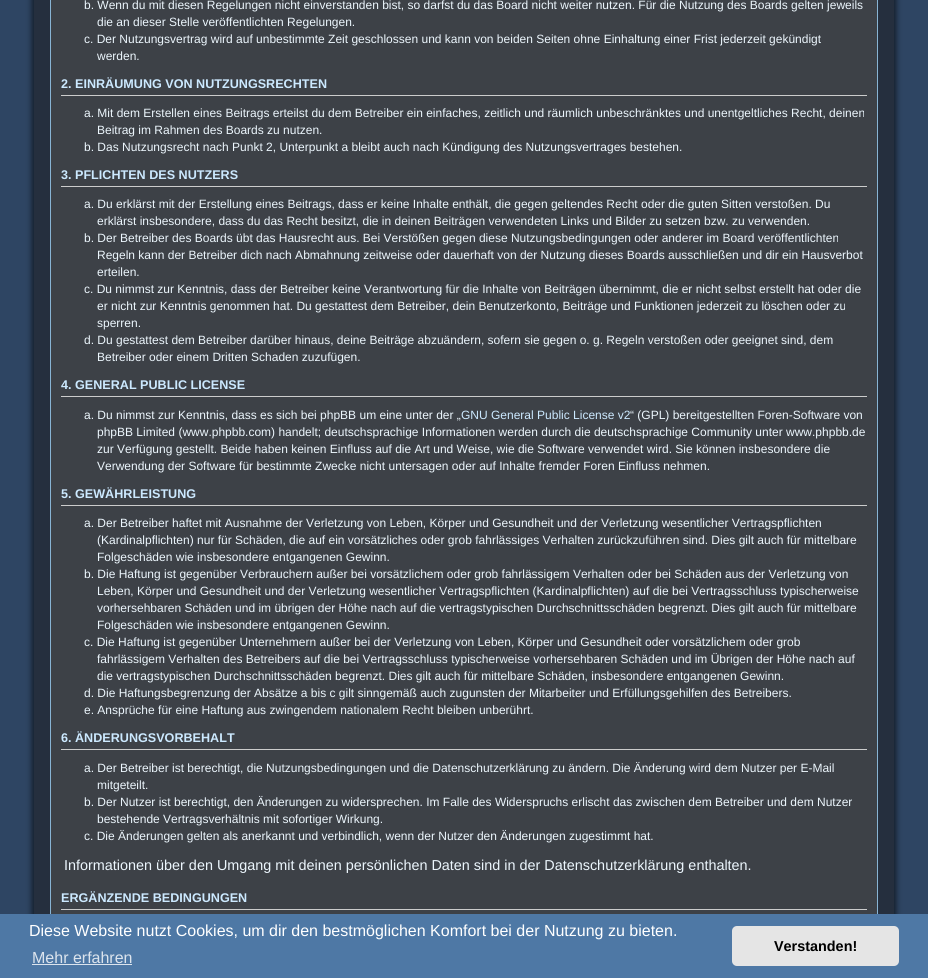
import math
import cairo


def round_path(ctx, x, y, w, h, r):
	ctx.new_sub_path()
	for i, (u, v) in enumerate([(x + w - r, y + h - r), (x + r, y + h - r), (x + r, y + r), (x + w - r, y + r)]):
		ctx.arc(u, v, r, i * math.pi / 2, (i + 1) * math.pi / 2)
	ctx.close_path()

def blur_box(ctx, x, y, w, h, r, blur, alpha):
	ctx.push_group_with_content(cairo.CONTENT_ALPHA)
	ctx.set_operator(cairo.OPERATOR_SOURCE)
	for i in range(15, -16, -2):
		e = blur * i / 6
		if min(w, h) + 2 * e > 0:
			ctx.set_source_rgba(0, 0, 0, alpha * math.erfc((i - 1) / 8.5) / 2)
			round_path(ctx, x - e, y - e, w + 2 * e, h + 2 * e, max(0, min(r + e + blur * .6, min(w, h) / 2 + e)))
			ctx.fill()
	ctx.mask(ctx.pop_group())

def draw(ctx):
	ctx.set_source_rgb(0.18, 0.271, 0.388)
	ctx.paint()
	ctx.set_source_rgb(0, 0, 0)
	blur_box(ctx, 32, -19, 864, 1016, 10, 3, 0.62)
	ctx.set_source_rgb(0.145, 0.184, 0.243)
	ctx.rectangle(34, 0, 860, 914)
	ctx.fill()
	ctx.set_source_rgb(0.239, 0.255, 0.278)
	ctx.new_path()
	ctx.move_to(57, -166)
	ctx.line_to(871, -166)
	ctx.curve_to(874, -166, 877, -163, 877, -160)
	ctx.line_to(877, 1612)
	ctx.curve_to(877, 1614, 874, 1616, 871, 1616)
	ctx.line_to(57, 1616)
	ctx.curve_to(54, 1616, 51, 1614, 51, 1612)
	ctx.line_to(51, -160)
	ctx.curve_to(51, -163, 54, -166, 57, -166)
	ctx.close_path()
	ctx.fill()
	ctx.rectangle(50.5, -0.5, 827, 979)
	ctx.set_source_rgb(0.533, 0.706, 0.831)
	ctx.set_line_width(1)
	ctx.stroke()
	ctx.select_font_face('Liberation Sans')
	ctx.set_font_size(12)
	ctx.set_source_rgb(0.925, 0.961, 0.992)
	for x, y, s in [
		(84, 9, 'b. Wenn du mit diesen Regelungen nicht einverstanden bist, so darfst du das Board nicht weiter nutzen. Für die Nutzung des Boards gelten jeweils'),
		(97, 26, 'die an dieser Stelle veröffentlichten Regelungen.'),
		(84, 43, 'c. Der Nutzungsvertrag wird auf unbestimmte Zeit geschlossen und kann von beiden Seiten ohne Einhaltung einer Frist jederzeit gekündigt'),
		(97, 60, 'werden.'),
	]:
		ctx.move_to(x, y)
		ctx.show_text(s)
	ctx.set_source_rgb(0.8, 0.8, 0.8)
	ctx.rectangle(61, 95, 806, 1)
	ctx.fill()
	ctx.select_font_face('Liberation Sans', cairo.FONT_SLANT_NORMAL, cairo.FONT_WEIGHT_BOLD)
	ctx.set_font_size(12.6)
	ctx.set_source_rgb(0.8, 0.914, 1)
	ctx.move_to(61, 88)
	ctx.show_text('2. EINRÄUMUNG VON NUTZUNGSRECHTEN')
	ctx.select_font_face('Liberation Sans')
	ctx.set_font_size(12)
	ctx.set_source_rgb(0.925, 0.961, 0.992)
	for x, y, s in [
		(84, 117, 'a. Mit dem Erstellen eines Beitrags erteilst du dem Betreiber ein einfaches, zeitlich und räumlich unbeschränktes und unentgeltliches Recht, deinen'),
		(97, 134, 'Beitrag im Rahmen des Boards zu nutzen.'),
		(84, 151, 'b. Das Nutzungsrecht nach Punkt 2, Unterpunkt a bleibt auch nach Kündigung des Nutzungsvertrages bestehen.'),
	]:
		ctx.move_to(x, y)
		ctx.show_text(s)
	ctx.set_source_rgb(0.8, 0.8, 0.8)
	ctx.rectangle(61, 186, 806, 1)
	ctx.fill()
	ctx.select_font_face('Liberation Sans', cairo.FONT_SLANT_NORMAL, cairo.FONT_WEIGHT_BOLD)
	ctx.set_font_size(12.6)
	ctx.set_source_rgb(0.8, 0.914, 1)
	ctx.move_to(61, 179)
	ctx.show_text('3. PFLICHTEN DES NUTZERS')
	ctx.select_font_face('Liberation Sans')
	ctx.set_font_size(12)
	ctx.set_source_rgb(0.925, 0.961, 0.992)
	for x, y, s in [
		(84, 208, 'a. Du erklärst mit der Erstellung eines Beitrags, dass er keine Inhalte enthält, die gegen geltendes Recht oder die guten Sitten verstoßen. Du'),
		(97, 225, 'erklärst insbesondere, dass du das Recht besitzt, die in deinen Beiträgen verwendeten Links und Bilder zu setzen bzw. zu verwenden.'),
		(84, 242, 'b. Der Betreiber des Boards übt das Hausrecht aus. Bei Verstößen gegen diese Nutzungsbedingungen oder anderer im Board veröffentlichten'),
		(97, 259, 'Regeln kann der Betreiber dich nach Abmahnung zeitweise oder dauerhaft von der Nutzung dieses Boards ausschließen und dir ein Hausverbot'),
		(97, 276, 'erteilen.'),
		(84, 293, 'c. Du nimmst zur Kenntnis, dass der Betreiber keine Verantwortung für die Inhalte von Beiträgen übernimmt, die er nicht selbst erstellt hat oder die'),
		(97, 310, 'er nicht zur Kenntnis genommen hat. Du gestattest dem Betreiber, dein Benutzerkonto, Beiträge und Funktionen jederzeit zu löschen oder zu'),
		(97, 327, 'sperren.'),
		(84, 344, 'd. Du gestattest dem Betreiber darüber hinaus, deine Beiträge abzuändern, sofern sie gegen o. g. Regeln verstoßen oder geeignet sind, dem'),
		(97, 361, 'Betreiber oder einem Dritten Schaden zuzufügen.'),
	]:
		ctx.move_to(x, y)
		ctx.show_text(s)
	ctx.set_source_rgb(0.8, 0.8, 0.8)
	ctx.rectangle(61, 396, 806, 1)
	ctx.fill()
	ctx.select_font_face('Liberation Sans', cairo.FONT_SLANT_NORMAL, cairo.FONT_WEIGHT_BOLD)
	ctx.set_font_size(12.6)
	ctx.set_source_rgb(0.8, 0.914, 1)
	ctx.move_to(61, 389)
	ctx.show_text('4. GENERAL PUBLIC LICENSE')
	ctx.select_font_face('Liberation Sans')
	ctx.set_font_size(12)
	ctx.set_source_rgb(0.925, 0.961, 0.992)
	ctx.move_to(84, 419)
	ctx.show_text('a. Du nimmst zur Kenntnis, dass es sich bei phpBB um eine unter der „')
	ctx.set_source_rgb(0.8, 0.914, 1)
	ctx.move_to(461, 419)
	ctx.show_text('GNU General Public License v2')
	ctx.set_source_rgb(0.925, 0.961, 0.992)
	for x, y, s in [
		(630, 419, '“ (GPL) bereitgestellten Foren-Software von'),
		(97, 436, 'phpBB Limited (www.phpbb.com) handelt; deutschsprachige Informationen werden durch die deutschsprachige Community unter www.phpbb.de'),
		(97, 453, 'zur Verfügung gestellt. Beide haben keinen Einfluss auf die Art und Weise, wie die Software verwendet wird. Sie können insbesondere die'),
		(97, 470, 'Verwendung der Software für bestimmte Zwecke nicht untersagen oder auf Inhalte fremder Foren Einfluss nehmen.'),
	]:
		ctx.move_to(x, y)
		ctx.show_text(s)
	ctx.set_source_rgb(0.8, 0.8, 0.8)
	ctx.rectangle(61, 505, 806, 1)
	ctx.fill()
	ctx.select_font_face('Liberation Sans', cairo.FONT_SLANT_NORMAL, cairo.FONT_WEIGHT_BOLD)
	ctx.set_font_size(12.6)
	ctx.set_source_rgb(0.8, 0.914, 1)
	ctx.move_to(61, 498)
	ctx.show_text('5. GEWÄHRLEISTUNG')
	ctx.select_font_face('Liberation Sans')
	ctx.set_font_size(12)
	ctx.set_source_rgb(0.925, 0.961, 0.992)
	for x, y, s in [
		(84, 527, 'a. Der Betreiber haftet mit Ausnahme der Verletzung von Leben, Körper und Gesundheit und der Verletzung wesentlicher Vertragspflichten'),
		(97, 544, '(Kardinalpflichten) nur für Schäden, die auf ein vorsätzliches oder grob fahrlässiges Verhalten zurückzuführen sind. Dies gilt auch für mittelbare'),
		(97, 561, 'Folgeschäden wie insbesondere entgangenen Gewinn.'),
		(84, 578, 'b. Die Haftung ist gegenüber Verbrauchern außer bei vorsätzlichem oder grob fahrlässigem Verhalten oder bei Schäden aus der Verletzung von'),
		(97, 595, 'Leben, Körper und Gesundheit und der Verletzung wesentlicher Vertragspflichten (Kardinalpflichten) auf die bei Vertragsschluss typischerweise'),
		(97, 612, 'vorhersehbaren Schäden und im übrigen der Höhe nach auf die vertragstypischen Durchschnittsschäden begrenzt. Dies gilt auch für mittelbare'),
		(97, 629, 'Folgeschäden wie insbesondere entgangenen Gewinn.'),
		(84, 646, 'c. Die Haftung ist gegenüber Unternehmern außer bei der Verletzung von Leben, Körper und Gesundheit oder vorsätzlichem oder grob'),
		(97, 663, 'fahrlässigem Verhalten des Betreibers auf die bei Vertragsschluss typischerweise vorhersehbaren Schäden und im Übrigen der Höhe nach auf'),
		(97, 680, 'die vertragstypischen Durchschnittsschäden begrenzt. Dies gilt auch für mittelbare Schäden, insbesondere entgangenen Gewinn.'),
		(84, 697, 'd. Die Haftungsbegrenzung der Absätze a bis c gilt sinngemäß auch zugunsten der Mitarbeiter und Erfüllungsgehilfen des Betreibers.'),
		(84, 714, 'e. Ansprüche für eine Haftung aus zwingendem nationalem Recht bleiben unberührt.'),
	]:
		ctx.move_to(x, y)
		ctx.show_text(s)
	ctx.set_source_rgb(0.8, 0.8, 0.8)
	ctx.rectangle(61, 749, 806, 1)
	ctx.fill()
	ctx.select_font_face('Liberation Sans', cairo.FONT_SLANT_NORMAL, cairo.FONT_WEIGHT_BOLD)
	ctx.set_font_size(12.6)
	ctx.set_source_rgb(0.8, 0.914, 1)
	ctx.move_to(61, 742)
	ctx.show_text('6. ÄNDERUNGSVORBEHALT')
	ctx.select_font_face('Liberation Sans')
	ctx.set_font_size(12)
	ctx.set_source_rgb(0.925, 0.961, 0.992)
	for x, y, s in [
		(84, 772, 'a. Der Betreiber ist berechtigt, die Nutzungsbedingungen und die Datenschutzerklärung zu ändern. Die Änderung wird dem Nutzer per E-Mail'),
		(97, 789, 'mitgeteilt.'),
		(84, 806, 'b. Der Nutzer ist berechtigt, den Änderungen zu widersprechen. Im Falle des Widerspruchs erlischt das zwischen dem Betreiber und dem Nutzer'),
		(97, 823, 'bestehende Vertragsverhältnis mit sofortiger Wirkung.'),
		(84, 840, 'c. Die Änderungen gelten als anerkannt und verbindlich, wenn der Nutzer den Änderungen zugestimmt hat.'),
	]:
		ctx.move_to(x, y)
		ctx.show_text(s)
	ctx.set_font_size(14.4)
	ctx.move_to(64, 870)
	ctx.show_text('Informationen über den Umgang mit deinen persönlichen Daten sind in der Datenschutzerklärung enthalten.')
	ctx.set_source_rgb(0.8, 0.8, 0.8)
	ctx.rectangle(61, 909, 806, 1)
	ctx.fill()
	ctx.select_font_face('Liberation Sans', cairo.FONT_SLANT_NORMAL, cairo.FONT_WEIGHT_BOLD)
	ctx.set_font_size(12.6)
	ctx.set_source_rgb(0.8, 0.914, 1)
	ctx.move_to(61, 902)
	ctx.show_text('ERGÄNZENDE BEDINGUNGEN')
	ctx.set_source_rgb(0.306, 0.471, 0.647)
	ctx.rectangle(0, 914, 928, 64)
	ctx.fill()
	ctx.select_font_face('Liberation Sans')
	ctx.set_font_size(16)
	ctx.set_source_rgb(1, 1, 1)
	ctx.move_to(29, 936)
	ctx.show_text('Diese Website nutzt Cookies, um dir den bestmöglichen Komfort bei der Nutzung zu bieten.')
	ctx.set_source_rgb(0.863, 0.894, 0.929)
	ctx.move_to(32, 963)
	ctx.show_text('Mehr erfahren')
	ctx.rectangle(32, 964, 100, 1)
	ctx.fill()
	ctx.set_source_rgb(0.898, 0.898, 0.898)
	round_path(ctx, 732, 926, 167, 40, 5)
	ctx.fill()
	ctx.select_font_face('Liberation Sans', cairo.FONT_SLANT_NORMAL, cairo.FONT_WEIGHT_BOLD)
	ctx.set_font_size(14.4)
	ctx.set_source_rgb(0, 0, 0)
	ctx.move_to(774, 951)
	ctx.show_text('Verstanden!')


surface = cairo.ImageSurface(cairo.FORMAT_RGB24, 928, 978)
ctx = cairo.Context(surface)
options = cairo.FontOptions()
options.set_hint_metrics(cairo.HINT_METRICS_OFF)
options.set_hint_style(cairo.HINT_STYLE_NONE)
ctx.set_font_options(options)
ctx.set_miter_limit(4)
draw(ctx)
surface.write_to_png('image.png')
